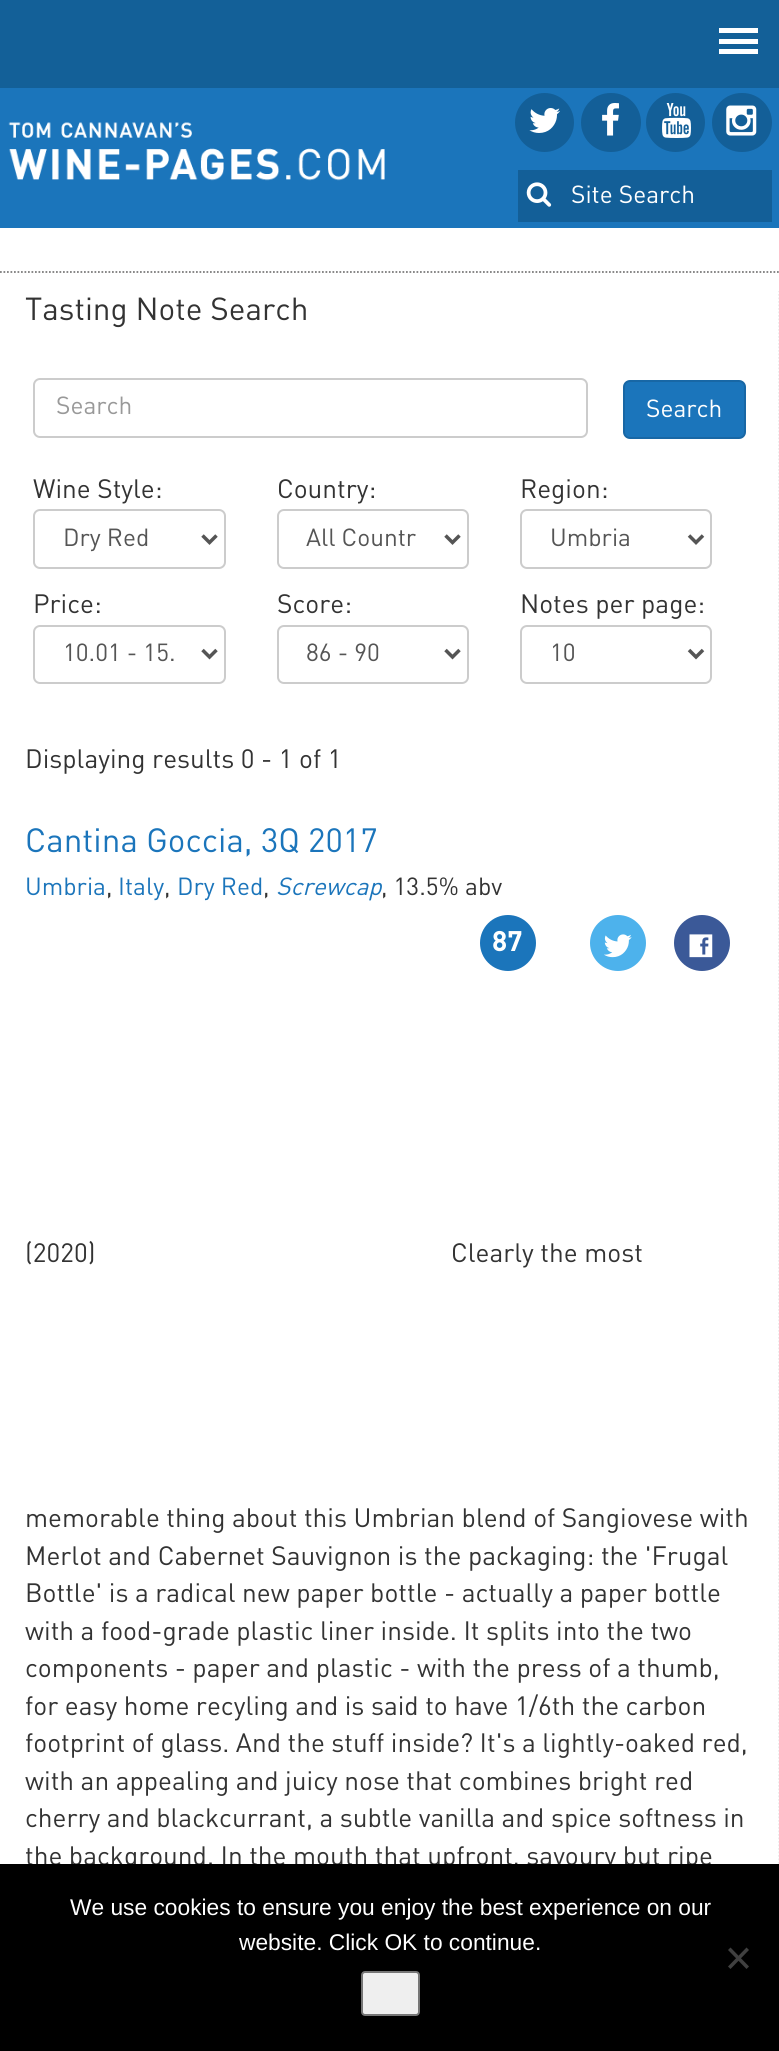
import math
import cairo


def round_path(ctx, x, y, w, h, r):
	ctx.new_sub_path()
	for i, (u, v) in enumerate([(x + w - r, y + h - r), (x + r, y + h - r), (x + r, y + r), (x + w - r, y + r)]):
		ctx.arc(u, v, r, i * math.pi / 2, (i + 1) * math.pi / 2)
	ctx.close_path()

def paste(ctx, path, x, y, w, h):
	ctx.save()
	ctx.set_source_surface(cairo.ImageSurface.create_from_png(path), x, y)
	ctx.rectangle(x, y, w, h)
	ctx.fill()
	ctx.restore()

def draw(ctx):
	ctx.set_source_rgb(1, 1, 1)
	ctx.paint()
	ctx.set_source_rgb(0.075, 0.376, 0.596)
	ctx.rectangle(0, 0, 779, 88)
	ctx.fill()
	ctx.set_source_rgb(1, 1, 1)
	ctx.rectangle(719, 28, 39, 5)
	ctx.rectangle(719, 39, 39, 5)
	ctx.rectangle(719, 49, 39, 5)
	ctx.fill()
	ctx.new_path()
	ctx.move_to(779.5, 290.5)
	ctx.line_to(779.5, 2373)
	ctx.set_source_rgb(0.831, 0.831, 0.835)
	ctx.set_line_width(1.8)
	ctx.set_dash([1.75, 1.75])
	ctx.stroke()
	ctx.set_source_rgb(1, 1, 1)
	ctx.rectangle(778, 290, 1, 1)
	ctx.fill()
	ctx.set_source_rgb(0.106, 0.459, 0.733)
	ctx.rectangle(0, 88, 779, 140)
	ctx.fill()
	paste(ctx, 'media/1.png', 8, 122, 377, 59)
	ctx.set_source_rgb(0.075, 0.373, 0.596)
	ctx.arc(544.5, 122.5, 29.5, 0, 2 * math.pi)
	ctx.fill()
	paste(ctx, 'media/2.png', 529, 108, 31, 25)
	round_path(ctx, 581, 93, 60, 59, 29.5)
	ctx.fill()
	paste(ctx, 'media/3.png', 602, 103, 17, 33)
	ctx.arc(675.5, 122.5, 29.5, 0, 2 * math.pi)
	ctx.fill()
	paste(ctx, 'media/4.png', 662, 103, 29, 35)
	round_path(ctx, 712, 93, 60, 59, 29.5)
	ctx.fill()
	paste(ctx, 'media/5.png', 726, 105, 31, 31)
	ctx.rectangle(518, 170, 254, 52)
	ctx.fill()
	paste(ctx, 'media/6.png', 526, 182, 26, 25)
	ctx.select_font_face('DIN')
	ctx.set_font_size(24.5)
	ctx.set_source_rgb(1, 1, 1)
	ctx.move_to(571, 203)
	ctx.show_text('Site Search')
	ctx.new_path()
	ctx.move_to(0, 272)
	ctx.line_to(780.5, 272)
	ctx.set_source_rgb(0.49, 0.486, 0.486)
	ctx.stroke()
	ctx.set_font_size(31.5)
	ctx.set_source_rgb(0.2, 0.2, 0.2)
	ctx.move_to(25, 320)
	ctx.show_text('Tasting Note Search')
	round_path(ctx, 34, 379, 553, 58, 6)
	ctx.set_source_rgb(0.8, 0.8, 0.8)
	ctx.set_line_width(2)
	ctx.set_dash([])
	ctx.stroke()
	ctx.set_font_size(24.5)
	ctx.set_source_rgb(0.6, 0.6, 0.6)
	ctx.move_to(56, 414)
	ctx.show_text('Search')
	ctx.set_source_rgb(0.106, 0.459, 0.733)
	round_path(ctx, 624, 381, 121, 57, 6)
	ctx.fill_preserve()
	ctx.set_source_rgb(0.094, 0.404, 0.647)
	ctx.stroke()
	ctx.set_source_rgb(1, 1, 1)
	ctx.move_to(646, 417)
	ctx.show_text('Search')
	ctx.set_font_size(26.25)
	ctx.set_source_rgb(0.2, 0.2, 0.2)
	ctx.move_to(33, 498)
	ctx.show_text('Wine Style:')
	round_path(ctx, 34, 510, 191, 58, 6)
	ctx.set_source_rgb(0.8, 0.8, 0.8)
	ctx.stroke()
	ctx.new_path()
	ctx.move_to(202.5, 535.5)
	ctx.line_to(209.5, 542.5)
	ctx.line_to(216.5, 535.5)
	ctx.set_source_rgb(0.333, 0.333, 0.333)
	ctx.set_line_width(3.5)
	ctx.stroke()
	ctx.set_font_size(24.5)
	ctx.move_to(63, 546)
	ctx.show_text('Dry Red')
	ctx.set_font_size(26.25)
	ctx.set_source_rgb(0.2, 0.2, 0.2)
	ctx.move_to(277, 498)
	ctx.show_text('Country:')
	round_path(ctx, 278, 510, 190, 58, 6)
	ctx.set_source_rgb(0.8, 0.8, 0.8)
	ctx.set_line_width(2)
	ctx.stroke()
	ctx.new_path()
	ctx.move_to(445.5, 535.5)
	ctx.line_to(452.5, 542.5)
	ctx.line_to(459.5, 535.5)
	ctx.set_source_rgb(0.333, 0.333, 0.333)
	ctx.set_line_width(3.5)
	ctx.stroke()
	ctx.set_font_size(24.5)
	ctx.move_to(306, 546)
	ctx.show_text('All Countr')
	ctx.set_font_size(26.25)
	ctx.set_source_rgb(0.2, 0.2, 0.2)
	ctx.move_to(520, 498)
	ctx.show_text('Region:')
	round_path(ctx, 521, 510, 190, 58, 6)
	ctx.set_source_rgb(0.8, 0.8, 0.8)
	ctx.set_line_width(2)
	ctx.stroke()
	ctx.new_path()
	ctx.move_to(689, 535.5)
	ctx.line_to(696, 542.5)
	ctx.line_to(703, 535.5)
	ctx.set_source_rgb(0.333, 0.333, 0.333)
	ctx.set_line_width(3.5)
	ctx.stroke()
	ctx.set_font_size(24.5)
	ctx.move_to(550, 546)
	ctx.show_text('Umbria')
	ctx.set_font_size(26.25)
	ctx.set_source_rgb(0.2, 0.2, 0.2)
	ctx.move_to(33, 613)
	ctx.show_text('Price:')
	round_path(ctx, 34, 626, 191, 57, 6)
	ctx.set_source_rgb(0.8, 0.8, 0.8)
	ctx.set_line_width(2)
	ctx.stroke()
	ctx.new_path()
	ctx.move_to(202.5, 650)
	ctx.line_to(209.5, 657)
	ctx.line_to(216.5, 650)
	ctx.set_source_rgb(0.333, 0.333, 0.333)
	ctx.set_line_width(3.5)
	ctx.stroke()
	ctx.set_font_size(24.5)
	ctx.move_to(63, 661)
	ctx.show_text('10.01 - 15.')
	ctx.set_font_size(26.25)
	ctx.set_source_rgb(0.2, 0.2, 0.2)
	ctx.move_to(277, 613)
	ctx.show_text('Score:')
	round_path(ctx, 278, 626, 190, 57, 6)
	ctx.set_source_rgb(0.8, 0.8, 0.8)
	ctx.set_line_width(2)
	ctx.stroke()
	ctx.new_path()
	ctx.move_to(445.5, 650)
	ctx.line_to(452.5, 657)
	ctx.line_to(459.5, 650)
	ctx.set_source_rgb(0.333, 0.333, 0.333)
	ctx.set_line_width(3.5)
	ctx.stroke()
	ctx.set_font_size(24.5)
	ctx.move_to(306, 661)
	ctx.show_text('86 - 90')
	ctx.set_font_size(26.25)
	ctx.set_source_rgb(0.2, 0.2, 0.2)
	ctx.move_to(520, 613)
	ctx.show_text('Notes per page:')
	round_path(ctx, 521, 626, 190, 57, 6)
	ctx.set_source_rgb(0.8, 0.8, 0.8)
	ctx.set_line_width(2)
	ctx.stroke()
	ctx.new_path()
	ctx.move_to(689, 650)
	ctx.line_to(696, 657)
	ctx.line_to(703, 650)
	ctx.set_source_rgb(0.333, 0.333, 0.333)
	ctx.set_line_width(3.5)
	ctx.stroke()
	ctx.set_font_size(24.5)
	ctx.move_to(550, 661)
	ctx.show_text('10')
	ctx.set_font_size(26.25)
	ctx.set_source_rgb(0.2, 0.2, 0.2)
	ctx.move_to(25, 768)
	ctx.show_text('Displaying results 0 - 1 of 1')
	ctx.set_font_size(33.25)
	ctx.set_source_rgb(0.106, 0.459, 0.733)
	ctx.move_to(25, 852)
	ctx.show_text('Cantina Goccia, 3Q 2017')
	ctx.set_font_size(24.5)
	ctx.move_to(25, 895)
	ctx.show_text('Umbria')
	ctx.set_source_rgb(0.2, 0.2, 0.2)
	ctx.move_to(106, 895)
	ctx.show_text(',')
	ctx.set_source_rgb(0.106, 0.459, 0.733)
	ctx.move_to(118, 895)
	ctx.show_text('Italy')
	ctx.set_source_rgb(0.2, 0.2, 0.2)
	ctx.move_to(164, 895)
	ctx.show_text(',')
	ctx.set_source_rgb(0.106, 0.459, 0.733)
	ctx.move_to(177, 895)
	ctx.show_text('Dry Red')
	ctx.set_source_rgb(0.2, 0.2, 0.2)
	ctx.move_to(263, 895)
	ctx.show_text(',')
	ctx.select_font_face('DIN', cairo.FONT_SLANT_ITALIC)
	ctx.set_source_rgb(0.106, 0.459, 0.733)
	ctx.move_to(276, 895)
	ctx.show_text('Screwcap')
	ctx.select_font_face('DIN')
	ctx.set_source_rgb(0.2, 0.2, 0.2)
	ctx.move_to(381, 895)
	ctx.show_text(', 13.5% abv')
	ctx.set_source_rgb(0.106, 0.459, 0.733)
	ctx.new_path()
	ctx.arc(508, 943, 28, 0, 2 * math.pi)
	ctx.fill()
	ctx.select_font_face('DIN', cairo.FONT_SLANT_NORMAL, cairo.FONT_WEIGHT_BOLD)
	ctx.set_font_size(28)
	ctx.set_source_rgb(1, 1, 1)
	ctx.move_to(492, 951)
	ctx.show_text('87')
	ctx.set_source_rgb(0.302, 0.698, 0.925)
	ctx.new_path()
	ctx.arc(618, 943, 28, 0, 2 * math.pi)
	ctx.fill()
	paste(ctx, 'media/7.png', 604, 934, 28, 24)
	ctx.set_source_rgb(0.231, 0.349, 0.596)
	ctx.arc(702, 943, 28, 0, 2 * math.pi)
	ctx.fill()
	paste(ctx, 'media/8.png', 689, 934, 24, 24)
	ctx.select_font_face('DIN')
	ctx.set_font_size(26.25)
	ctx.set_source_rgb(0.2, 0.2, 0.2)
	for x, y, s in [
		(25, 1262, '(2020)'),
		(451, 1262, 'Clearly the most'),
		(25, 1527, 'memorable thing about this Umbrian blend of Sangiovese with'),
		(25, 1565, 'Merlot and Cabernet Sauvignon is the packaging: the \'Frugal'),
		(25, 1602, 'Bottle\' is a radical new paper bottle - actually a paper bottle'),
		(25, 1640, 'with a food-grade plastic liner inside. It splits into the two'),
		(25, 1677, 'components - paper and plastic - with the press of a thumb,'),
		(25, 1715, 'for easy home recyling and is said to have 1/6th the carbon'),
		(25, 1752, 'footprint of glass. And the stuff inside? It\'s a lightly-oaked red,'),
		(25, 1790, 'with an appealing and juicy nose that combines bright red'),
		(25, 1827, 'cherry and blackcurrant, a subtle vanilla and spice softness in'),
		(25, 1865, 'the background. In the mouth that upfront, savoury but ripe'),
	]:
		ctx.move_to(x, y)
		ctx.show_text(s)
	ctx.set_source_rgb(0, 0, 0)
	ctx.rectangle(0, 1864, 779, 187)
	ctx.fill()
	ctx.select_font_face('Liberation Sans')
	ctx.set_font_size(22.75)
	ctx.set_source_rgb(1, 1, 1)
	ctx.move_to(70, 1915)
	ctx.show_text('We use cookies to ensure you enjoy the best experience on our')
	ctx.move_to(239, 1950)
	ctx.show_text('website. Click OK to continue.')
	ctx.set_source_rgb(0.251, 0.251, 0.251)
	ctx.new_path()
	ctx.move_to(746.5, 1947.5)
	ctx.line_to(749, 1950)
	ctx.line_to(730.5, 1969)
	ctx.line_to(728, 1966.5)
	ctx.close_path()
	ctx.fill()
	ctx.new_path()
	ctx.move_to(728, 1950)
	ctx.line_to(730.5, 1947.5)
	ctx.line_to(749, 1966.5)
	ctx.line_to(746.5, 1969)
	ctx.close_path()
	ctx.fill()
	ctx.set_source_rgb(0.937, 0.937, 0.937)
	round_path(ctx, 362, 1972, 57, 43, 3)
	ctx.fill_preserve()
	ctx.set_source_rgb(0.463, 0.463, 0.463)
	ctx.set_line_width(2)
	ctx.stroke()


surface = cairo.ImageSurface(cairo.FORMAT_RGB24, 779, 2051)
ctx = cairo.Context(surface)
options = cairo.FontOptions()
options.set_hint_metrics(cairo.HINT_METRICS_OFF)
options.set_hint_style(cairo.HINT_STYLE_NONE)
ctx.set_font_options(options)
ctx.set_miter_limit(4)
draw(ctx)
surface.write_to_png('image.png')
